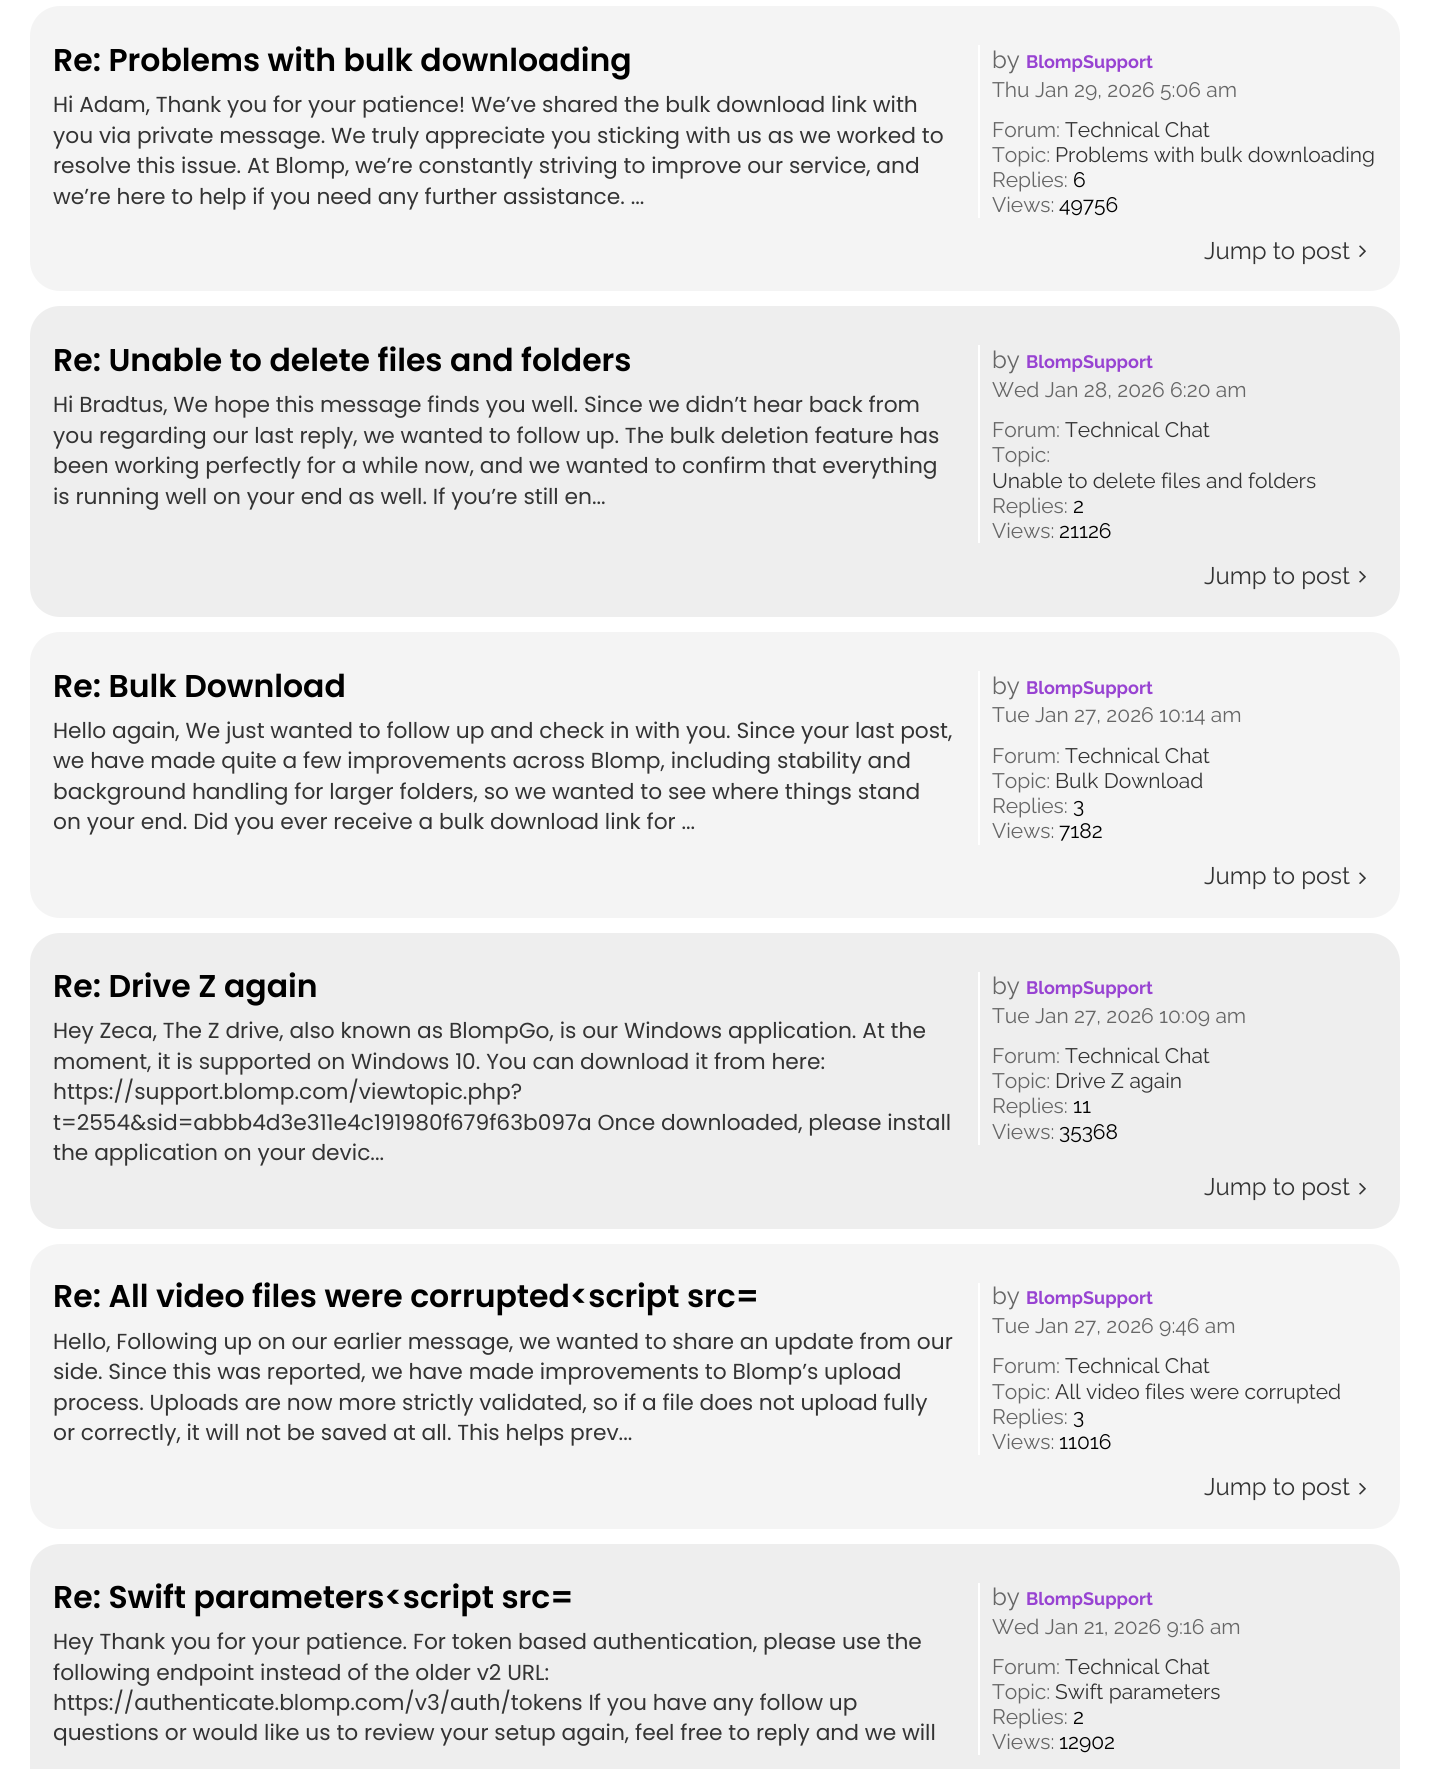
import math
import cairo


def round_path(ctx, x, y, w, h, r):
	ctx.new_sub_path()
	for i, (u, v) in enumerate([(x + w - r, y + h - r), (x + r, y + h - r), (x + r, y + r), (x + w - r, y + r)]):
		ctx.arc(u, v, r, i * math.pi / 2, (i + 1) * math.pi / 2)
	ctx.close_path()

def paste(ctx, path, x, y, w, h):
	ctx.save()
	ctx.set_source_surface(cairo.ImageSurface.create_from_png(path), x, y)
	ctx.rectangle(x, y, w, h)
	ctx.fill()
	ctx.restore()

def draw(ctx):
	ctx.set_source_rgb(1, 1, 1)
	ctx.paint()
	ctx.set_source_rgb(0.957, 0.957, 0.957)
	round_path(ctx, 30, 6, 1370, 285, 30)
	ctx.fill()
	ctx.select_font_face('Poppins SemiBold')
	ctx.set_font_size(31.5)
	ctx.set_source_rgb(0, 0, 0)
	ctx.move_to(53, 71)
	ctx.show_text('Re: Problems with bulk downloading')
	ctx.select_font_face('Poppins')
	ctx.set_font_size(21.75)
	ctx.set_source_rgb(0.2, 0.2, 0.2)
	for x, y, s in [
		(53, 112, 'Hi Adam, Thank you for your patience! We’ve shared the bulk download link with'),
		(53, 143, 'you via private message. We truly appreciate you sticking with us as we worked to'),
		(53, 173, 'resolve this issue. At Blomp, we’re constantly striving to improve our service, and'),
		(53, 204, 'we’re here to help if you need any further assistance. ...'),
	]:
		ctx.move_to(x, y)
		ctx.show_text(s)
	ctx.set_source_rgb(1, 1, 1)
	ctx.rectangle(978, 45, 2, 173)
	ctx.fill()
	ctx.select_font_face('Raleway')
	ctx.set_font_size(24)
	ctx.set_source_rgb(0.4, 0.4, 0.4)
	ctx.move_to(992, 68)
	ctx.show_text('by')
	ctx.select_font_face('Raleway', cairo.FONT_SLANT_NORMAL, cairo.FONT_WEIGHT_BOLD)
	ctx.set_font_size(18)
	ctx.set_source_rgb(0.596, 0.263, 0.824)
	ctx.move_to(1026, 68)
	ctx.show_text('BlompSupport')
	ctx.select_font_face('Raleway')
	ctx.set_font_size(21)
	ctx.set_source_rgb(0.4, 0.4, 0.4)
	ctx.move_to(992, 97)
	ctx.show_text('Thu Jan 29, 2026 5:06 am')
	ctx.move_to(992, 137)
	ctx.show_text('Forum:')
	ctx.set_source_rgb(0.2, 0.2, 0.2)
	ctx.move_to(1065, 137)
	ctx.show_text('Technical Chat')
	ctx.set_source_rgb(0.4, 0.4, 0.4)
	ctx.move_to(992, 162)
	ctx.show_text('Topic:')
	ctx.set_source_rgb(0.2, 0.2, 0.2)
	ctx.move_to(1055, 162)
	ctx.show_text('Problems with bulk downloading')
	ctx.set_source_rgb(0.4, 0.4, 0.4)
	ctx.move_to(992, 187)
	ctx.show_text('Replies:')
	ctx.set_source_rgb(0, 0, 0)
	ctx.move_to(1073, 187)
	ctx.show_text('6')
	ctx.set_source_rgb(0.4, 0.4, 0.4)
	ctx.move_to(992, 212)
	ctx.show_text('Views:')
	ctx.set_source_rgb(0, 0, 0)
	ctx.move_to(1059, 212)
	ctx.show_text('49756')
	ctx.set_font_size(24)
	ctx.set_source_rgb(0.2, 0.2, 0.2)
	ctx.move_to(1204, 259)
	ctx.show_text('Jump to post')
	paste(ctx, 'media/1.png', 1359, 245, 7, 12)
	ctx.set_source_rgb(0.933, 0.933, 0.933)
	round_path(ctx, 30, 306, 1370, 311, 30)
	ctx.fill()
	ctx.select_font_face('Poppins SemiBold')
	ctx.set_font_size(31.5)
	ctx.set_source_rgb(0, 0, 0)
	ctx.move_to(53, 371)
	ctx.show_text('Re: Unable to delete files and folders')
	ctx.select_font_face('Poppins')
	ctx.set_font_size(21.75)
	ctx.set_source_rgb(0.2, 0.2, 0.2)
	for x, y, s in [
		(53, 412, 'Hi Bradtus, We hope this message finds you well. Since we didn’t hear back from'),
		(53, 443, 'you regarding our last reply, we wanted to follow up. The bulk deletion feature has'),
		(53, 473, 'been working perfectly for a while now, and we wanted to confirm that everything'),
		(53, 504, 'is running well on your end as well. If you’re still en...'),
	]:
		ctx.move_to(x, y)
		ctx.show_text(s)
	ctx.set_source_rgb(1, 1, 1)
	ctx.rectangle(978, 345, 2, 198)
	ctx.fill()
	ctx.select_font_face('Raleway')
	ctx.set_font_size(24)
	ctx.set_source_rgb(0.4, 0.4, 0.4)
	ctx.move_to(992, 368)
	ctx.show_text('by')
	ctx.select_font_face('Raleway', cairo.FONT_SLANT_NORMAL, cairo.FONT_WEIGHT_BOLD)
	ctx.set_font_size(18)
	ctx.set_source_rgb(0.596, 0.263, 0.824)
	ctx.move_to(1026, 368)
	ctx.show_text('BlompSupport')
	ctx.select_font_face('Raleway')
	ctx.set_font_size(21)
	ctx.set_source_rgb(0.4, 0.4, 0.4)
	ctx.move_to(992, 397)
	ctx.show_text('Wed Jan 28, 2026 6:20 am')
	ctx.move_to(992, 437)
	ctx.show_text('Forum:')
	ctx.set_source_rgb(0.2, 0.2, 0.2)
	ctx.move_to(1065, 437)
	ctx.show_text('Technical Chat')
	ctx.set_source_rgb(0.4, 0.4, 0.4)
	ctx.move_to(992, 462)
	ctx.show_text('Topic:')
	ctx.set_source_rgb(0.2, 0.2, 0.2)
	ctx.move_to(992, 488)
	ctx.show_text('Unable to delete files and folders')
	ctx.set_source_rgb(0.4, 0.4, 0.4)
	ctx.move_to(992, 513)
	ctx.show_text('Replies:')
	ctx.set_source_rgb(0, 0, 0)
	ctx.move_to(1073, 513)
	ctx.show_text('2')
	ctx.set_source_rgb(0.4, 0.4, 0.4)
	ctx.move_to(992, 538)
	ctx.show_text('Views:')
	ctx.set_source_rgb(0, 0, 0)
	ctx.move_to(1059, 538)
	ctx.show_text('21126')
	ctx.set_font_size(24)
	ctx.set_source_rgb(0.2, 0.2, 0.2)
	ctx.move_to(1204, 584)
	ctx.show_text('Jump to post')
	paste(ctx, 'media/2.png', 1359, 571, 7, 12)
	ctx.set_source_rgb(0.957, 0.957, 0.957)
	round_path(ctx, 30, 632, 1370, 286, 30)
	ctx.fill()
	ctx.select_font_face('Poppins SemiBold')
	ctx.set_font_size(31.5)
	ctx.set_source_rgb(0, 0, 0)
	ctx.move_to(53, 697)
	ctx.show_text('Re: Bulk Download')
	ctx.select_font_face('Poppins')
	ctx.set_font_size(21.75)
	ctx.set_source_rgb(0.2, 0.2, 0.2)
	for x, y, s in [
		(53, 738, 'Hello again, We just wanted to follow up and check in with you. Since your last post,'),
		(53, 768, 'we have made quite a few improvements across Blomp, including stability and'),
		(53, 799, 'background handling for larger folders, so we wanted to see where things stand'),
		(53, 829, 'on your end. Did you ever receive a bulk download link for ...'),
	]:
		ctx.move_to(x, y)
		ctx.show_text(s)
	ctx.set_source_rgb(1, 1, 1)
	ctx.rectangle(978, 671, 2, 174)
	ctx.fill()
	ctx.select_font_face('Raleway')
	ctx.set_font_size(24)
	ctx.set_source_rgb(0.4, 0.4, 0.4)
	ctx.move_to(992, 694)
	ctx.show_text('by')
	ctx.select_font_face('Raleway', cairo.FONT_SLANT_NORMAL, cairo.FONT_WEIGHT_BOLD)
	ctx.set_font_size(18)
	ctx.set_source_rgb(0.596, 0.263, 0.824)
	ctx.move_to(1026, 694)
	ctx.show_text('BlompSupport')
	ctx.select_font_face('Raleway')
	ctx.set_font_size(21)
	ctx.set_source_rgb(0.4, 0.4, 0.4)
	ctx.move_to(992, 722)
	ctx.show_text('Tue Jan 27, 2026 10:14 am')
	ctx.move_to(992, 763)
	ctx.show_text('Forum:')
	ctx.set_source_rgb(0.2, 0.2, 0.2)
	ctx.move_to(1065, 763)
	ctx.show_text('Technical Chat')
	ctx.set_source_rgb(0.4, 0.4, 0.4)
	ctx.move_to(992, 788)
	ctx.show_text('Topic:')
	ctx.set_source_rgb(0.2, 0.2, 0.2)
	ctx.move_to(1055, 788)
	ctx.show_text('Bulk Download')
	ctx.set_source_rgb(0.4, 0.4, 0.4)
	ctx.move_to(992, 813)
	ctx.show_text('Replies:')
	ctx.set_source_rgb(0, 0, 0)
	ctx.move_to(1073, 813)
	ctx.show_text('3')
	ctx.set_source_rgb(0.4, 0.4, 0.4)
	ctx.move_to(992, 838)
	ctx.show_text('Views:')
	ctx.set_source_rgb(0, 0, 0)
	ctx.move_to(1059, 838)
	ctx.show_text('7182')
	ctx.set_font_size(24)
	ctx.set_source_rgb(0.2, 0.2, 0.2)
	ctx.move_to(1204, 884)
	ctx.show_text('Jump to post')
	paste(ctx, 'media/1.png', 1359, 872, 7, 12)
	ctx.set_source_rgb(0.933, 0.933, 0.933)
	round_path(ctx, 30, 933, 1370, 296, 30)
	ctx.fill()
	ctx.select_font_face('Poppins SemiBold')
	ctx.set_font_size(31.5)
	ctx.set_source_rgb(0, 0, 0)
	ctx.move_to(53, 997)
	ctx.show_text('Re: Drive Z again')
	ctx.select_font_face('Poppins')
	ctx.set_font_size(21.75)
	ctx.set_source_rgb(0.2, 0.2, 0.2)
	for x, y, s in [
		(53, 1038, 'Hey Zeca, The Z drive, also known as BlompGo, is our Windows application. At the'),
		(53, 1069, 'moment, it is supported on Windows 10. You can download it from here:'),
		(53, 1099, 'https://support.blomp.com/viewtopic.php?'),
		(53, 1130, 't=2554&sid=abbb4d3e311e4c191980f679f63b097a Once downloaded, please install'),
		(53, 1160, 'the application on your devic...'),
	]:
		ctx.move_to(x, y)
		ctx.show_text(s)
	ctx.set_source_rgb(1, 1, 1)
	ctx.rectangle(978, 972, 2, 173)
	ctx.fill()
	ctx.select_font_face('Raleway')
	ctx.set_font_size(24)
	ctx.set_source_rgb(0.4, 0.4, 0.4)
	ctx.move_to(992, 994)
	ctx.show_text('by')
	ctx.select_font_face('Raleway', cairo.FONT_SLANT_NORMAL, cairo.FONT_WEIGHT_BOLD)
	ctx.set_font_size(18)
	ctx.set_source_rgb(0.596, 0.263, 0.824)
	ctx.move_to(1026, 994)
	ctx.show_text('BlompSupport')
	ctx.select_font_face('Raleway')
	ctx.set_font_size(21)
	ctx.set_source_rgb(0.4, 0.4, 0.4)
	ctx.move_to(992, 1023)
	ctx.show_text('Tue Jan 27, 2026 10:09 am')
	ctx.move_to(992, 1063)
	ctx.show_text('Forum:')
	ctx.set_source_rgb(0.2, 0.2, 0.2)
	ctx.move_to(1065, 1063)
	ctx.show_text('Technical Chat')
	ctx.set_source_rgb(0.4, 0.4, 0.4)
	ctx.move_to(992, 1088)
	ctx.show_text('Topic:')
	ctx.set_source_rgb(0.2, 0.2, 0.2)
	ctx.move_to(1055, 1088)
	ctx.show_text('Drive Z again')
	ctx.set_source_rgb(0.4, 0.4, 0.4)
	ctx.move_to(992, 1113)
	ctx.show_text('Replies:')
	ctx.set_source_rgb(0, 0, 0)
	ctx.move_to(1073, 1113)
	ctx.show_text('11')
	ctx.set_source_rgb(0.4, 0.4, 0.4)
	ctx.move_to(992, 1139)
	ctx.show_text('Views:')
	ctx.set_source_rgb(0, 0, 0)
	ctx.move_to(1059, 1139)
	ctx.show_text('35368')
	ctx.set_font_size(24)
	ctx.set_source_rgb(0.2, 0.2, 0.2)
	ctx.move_to(1204, 1195)
	ctx.show_text('Jump to post')
	paste(ctx, 'media/2.png', 1359, 1183, 7, 12)
	ctx.set_source_rgb(0.957, 0.957, 0.957)
	round_path(ctx, 30, 1244, 1370, 285, 30)
	ctx.fill()
	ctx.select_font_face('Poppins SemiBold')
	ctx.set_font_size(31.5)
	ctx.set_source_rgb(0, 0, 0)
	ctx.move_to(53, 1307)
	ctx.show_text('Re: All video files were corrupted<script src=')
	ctx.select_font_face('Poppins')
	ctx.set_font_size(21.75)
	ctx.set_source_rgb(0.2, 0.2, 0.2)
	for x, y, s in [
		(53, 1349, 'Hello, Following up on our earlier message, we wanted to share an update from our'),
		(53, 1379, 'side. Since this was reported, we have made improvements to Blomp’s upload'),
		(53, 1410, 'process. Uploads are now more strictly validated, so if a file does not upload fully'),
		(53, 1440, 'or correctly, it will not be saved at all. This helps prev...'),
	]:
		ctx.move_to(x, y)
		ctx.show_text(s)
	ctx.set_source_rgb(1, 1, 1)
	ctx.rectangle(978, 1283, 2, 172)
	ctx.fill()
	ctx.select_font_face('Raleway')
	ctx.set_font_size(24)
	ctx.set_source_rgb(0.4, 0.4, 0.4)
	ctx.move_to(992, 1304)
	ctx.show_text('by')
	ctx.select_font_face('Raleway', cairo.FONT_SLANT_NORMAL, cairo.FONT_WEIGHT_BOLD)
	ctx.set_font_size(18)
	ctx.set_source_rgb(0.596, 0.263, 0.824)
	ctx.move_to(1026, 1304)
	ctx.show_text('BlompSupport')
	ctx.select_font_face('Raleway')
	ctx.set_font_size(21)
	ctx.set_source_rgb(0.4, 0.4, 0.4)
	ctx.move_to(992, 1333)
	ctx.show_text('Tue Jan 27, 2026 9:46 am')
	ctx.move_to(992, 1373)
	ctx.show_text('Forum:')
	ctx.set_source_rgb(0.2, 0.2, 0.2)
	ctx.move_to(1065, 1373)
	ctx.show_text('Technical Chat')
	ctx.set_source_rgb(0.4, 0.4, 0.4)
	ctx.move_to(992, 1399)
	ctx.show_text('Topic:')
	ctx.set_source_rgb(0.2, 0.2, 0.2)
	ctx.move_to(1055, 1399)
	ctx.show_text('All video files were corrupted')
	ctx.set_source_rgb(0.4, 0.4, 0.4)
	ctx.move_to(992, 1424)
	ctx.show_text('Replies:')
	ctx.set_source_rgb(0, 0, 0)
	ctx.move_to(1073, 1424)
	ctx.show_text('3')
	ctx.set_source_rgb(0.4, 0.4, 0.4)
	ctx.move_to(992, 1449)
	ctx.show_text('Views:')
	ctx.set_source_rgb(0, 0, 0)
	ctx.move_to(1059, 1449)
	ctx.show_text('11016')
	ctx.set_font_size(24)
	ctx.set_source_rgb(0.2, 0.2, 0.2)
	ctx.move_to(1204, 1495)
	ctx.show_text('Jump to post')
	paste(ctx, 'media/3.png', 1359, 1483, 7, 12)
	ctx.set_source_rgb(0.933, 0.933, 0.933)
	round_path(ctx, 30, 1544, 1370, 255, 30)
	ctx.fill()
	ctx.select_font_face('Poppins SemiBold')
	ctx.set_font_size(31.5)
	ctx.set_source_rgb(0, 0, 0)
	ctx.move_to(53, 1608)
	ctx.show_text('Re: Swift parameters<script src=')
	ctx.select_font_face('Poppins')
	ctx.set_font_size(21.75)
	ctx.set_source_rgb(0.2, 0.2, 0.2)
	for x, y, s in [
		(53, 1649, 'Hey Thank you for your patience. For token based authentication, please use the'),
		(53, 1680, 'following endpoint instead of the older v2 URL:'),
		(53, 1710, 'https://authenticate.blomp.com/v3/auth/tokens If you have any follow up'),
		(53, 1740, 'questions or would like us to review your setup again, feel free to reply and we will'),
	]:
		ctx.move_to(x, y)
		ctx.show_text(s)
	ctx.set_source_rgb(1, 1, 1)
	ctx.rectangle(978, 1583, 2, 172)
	ctx.fill()
	ctx.select_font_face('Raleway')
	ctx.set_font_size(24)
	ctx.set_source_rgb(0.4, 0.4, 0.4)
	ctx.move_to(992, 1605)
	ctx.show_text('by')
	ctx.select_font_face('Raleway', cairo.FONT_SLANT_NORMAL, cairo.FONT_WEIGHT_BOLD)
	ctx.set_font_size(18)
	ctx.set_source_rgb(0.596, 0.263, 0.824)
	ctx.move_to(1026, 1605)
	ctx.show_text('BlompSupport')
	ctx.select_font_face('Raleway')
	ctx.set_font_size(21)
	ctx.set_source_rgb(0.4, 0.4, 0.4)
	ctx.move_to(992, 1634)
	ctx.show_text('Wed Jan 21, 2026 9:16 am')
	ctx.move_to(992, 1674)
	ctx.show_text('Forum:')
	ctx.set_source_rgb(0.2, 0.2, 0.2)
	ctx.move_to(1065, 1674)
	ctx.show_text('Technical Chat')
	ctx.set_source_rgb(0.4, 0.4, 0.4)
	ctx.move_to(992, 1699)
	ctx.show_text('Topic:')
	ctx.set_source_rgb(0.2, 0.2, 0.2)
	ctx.move_to(1055, 1699)
	ctx.show_text('Swift parameters')
	ctx.set_source_rgb(0.4, 0.4, 0.4)
	ctx.move_to(992, 1724)
	ctx.show_text('Replies:')
	ctx.set_source_rgb(0, 0, 0)
	ctx.move_to(1073, 1724)
	ctx.show_text('2')
	ctx.set_source_rgb(0.4, 0.4, 0.4)
	ctx.move_to(992, 1749)
	ctx.show_text('Views:')
	ctx.set_source_rgb(0, 0, 0)
	ctx.move_to(1059, 1749)
	ctx.show_text('12902')


surface = cairo.ImageSurface(cairo.FORMAT_RGB24, 1429, 1769)
ctx = cairo.Context(surface)
options = cairo.FontOptions()
options.set_hint_metrics(cairo.HINT_METRICS_OFF)
options.set_hint_style(cairo.HINT_STYLE_NONE)
ctx.set_font_options(options)
ctx.set_miter_limit(4)
draw(ctx)
surface.write_to_png('image.png')
